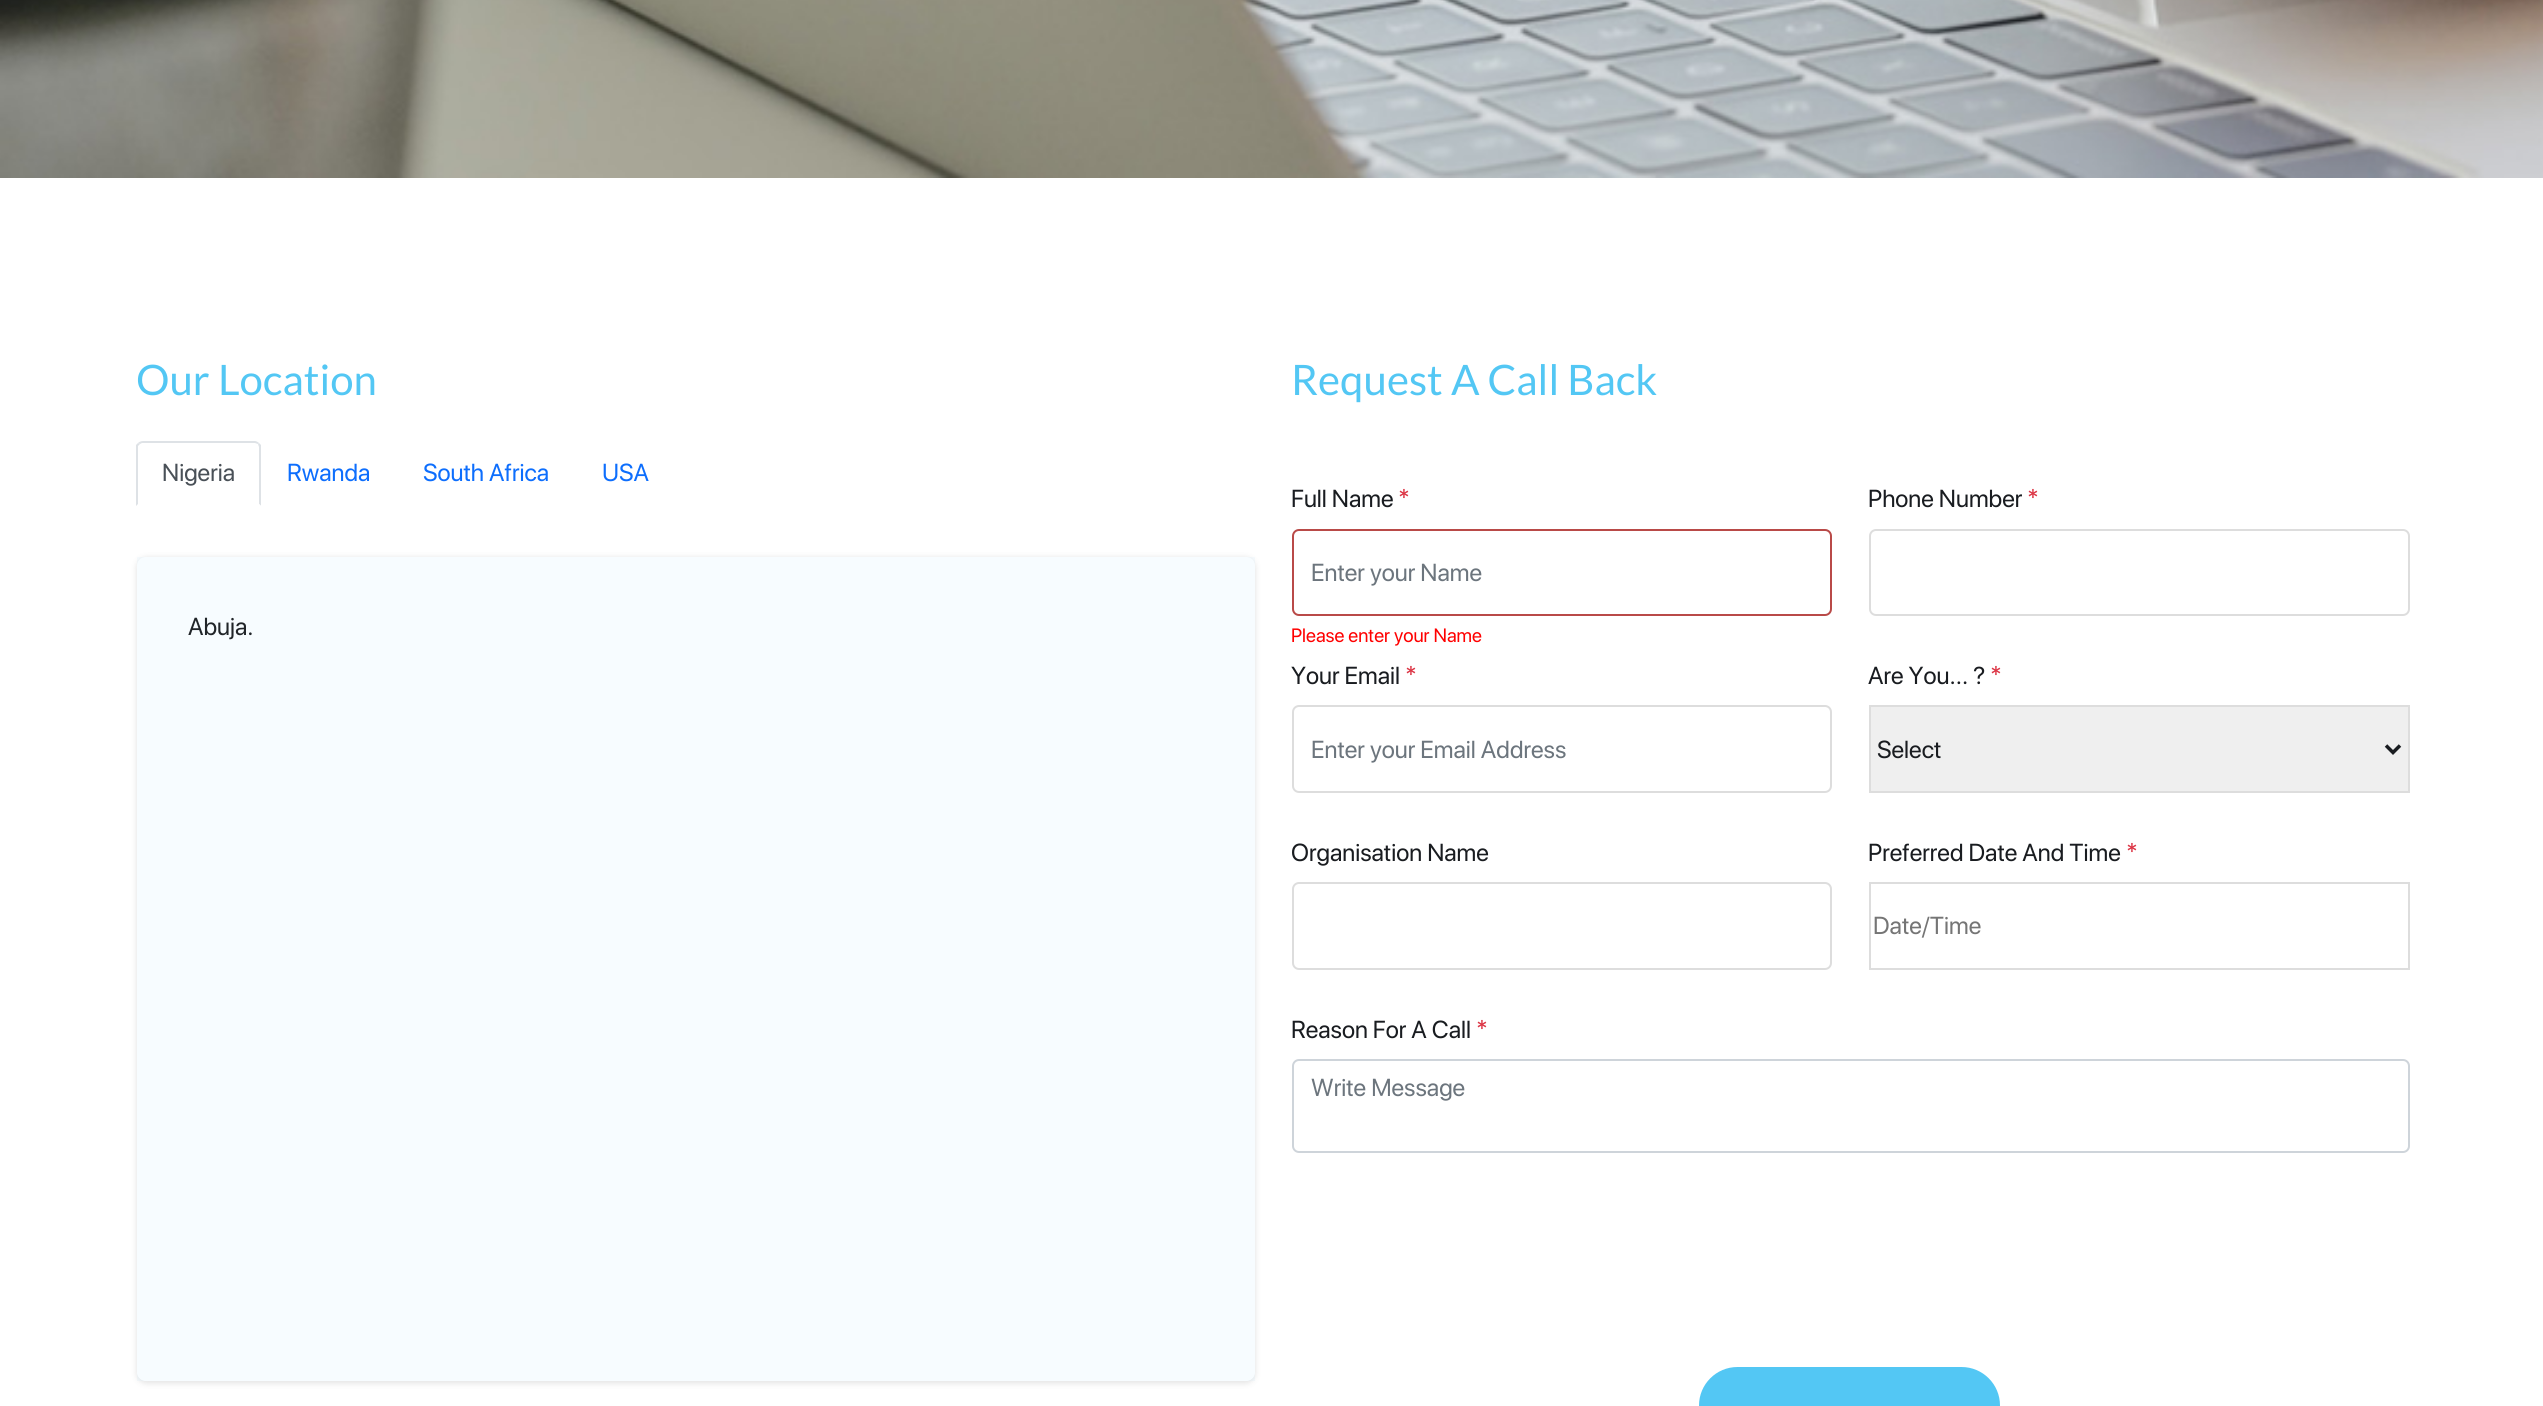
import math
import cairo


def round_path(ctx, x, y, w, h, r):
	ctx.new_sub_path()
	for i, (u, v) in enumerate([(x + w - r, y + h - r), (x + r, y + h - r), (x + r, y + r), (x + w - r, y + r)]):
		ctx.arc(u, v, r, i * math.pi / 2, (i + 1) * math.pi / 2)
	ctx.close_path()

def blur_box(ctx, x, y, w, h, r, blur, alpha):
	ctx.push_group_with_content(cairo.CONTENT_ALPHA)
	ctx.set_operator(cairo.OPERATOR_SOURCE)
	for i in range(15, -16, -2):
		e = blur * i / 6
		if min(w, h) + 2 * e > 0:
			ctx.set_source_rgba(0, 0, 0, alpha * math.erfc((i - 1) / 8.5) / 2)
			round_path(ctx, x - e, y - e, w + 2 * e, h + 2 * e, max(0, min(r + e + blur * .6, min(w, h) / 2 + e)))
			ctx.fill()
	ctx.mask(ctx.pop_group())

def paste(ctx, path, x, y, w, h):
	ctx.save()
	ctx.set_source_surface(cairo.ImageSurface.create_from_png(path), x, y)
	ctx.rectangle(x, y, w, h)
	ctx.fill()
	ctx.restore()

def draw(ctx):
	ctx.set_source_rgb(1, 1, 1)
	ctx.paint()
	paste(ctx, 'media/1.png', 0, 0, 2543, 178)
	ctx.select_font_face('Lato')
	ctx.set_font_size(42)
	ctx.set_source_rgb(0.325, 0.78, 0.957)
	ctx.move_to(136, 395)
	ctx.show_text('Our Location')
	ctx.set_source_rgb(0.871, 0.886, 0.902)
	ctx.new_path()
	ctx.move_to(143, 441)
	ctx.curve_to(141, 441, 139, 442, 138, 443)
	ctx.line_to(140, 444)
	ctx.line_to(142, 443)
	ctx.line_to(255, 443)
	ctx.line_to(258, 444)
	ctx.line_to(259, 443)
	ctx.curve_to(258, 442, 256, 441, 255, 441)
	ctx.close_path()
	ctx.fill()
	ctx.new_path()
	ctx.move_to(259, 443)
	ctx.line_to(261, 445)
	ctx.line_to(261, 506)
	ctx.line_to(259, 504)
	ctx.line_to(259, 447)
	ctx.line_to(258, 444)
	ctx.close_path()
	ctx.fill()
	ctx.set_source_rgb(1, 1, 1)
	ctx.new_path()
	ctx.move_to(261, 506)
	ctx.line_to(259, 504)
	ctx.line_to(138, 504)
	ctx.line_to(136, 506)
	ctx.close_path()
	ctx.fill()
	ctx.set_source_rgb(0.871, 0.886, 0.902)
	ctx.new_path()
	ctx.move_to(136, 506)
	ctx.line_to(136, 445)
	ctx.line_to(138, 443)
	ctx.line_to(140, 444)
	ctx.line_to(138, 446)
	ctx.line_to(138, 504)
	ctx.close_path()
	ctx.fill()
	ctx.select_font_face('SF Pro Display')
	ctx.set_font_size(24.5)
	ctx.set_source_rgb(0.286, 0.314, 0.341)
	ctx.move_to(162, 481)
	ctx.show_text('Nigeria')
	ctx.set_source_rgb(0.051, 0.431, 0.992)
	for x, y, s in [
		(287, 481, 'Rwanda'),
		(423, 481, 'South Africa'),
		(602, 481, 'USA'),
	]:
		ctx.move_to(x, y)
		ctx.show_text(s)
	ctx.save()
	ctx.set_fill_rule(cairo.FILL_RULE_EVEN_ODD)
	ctx.new_path()
	ctx.move_to(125, 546)
	ctx.line_to(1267, 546)
	ctx.line_to(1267, 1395)
	ctx.line_to(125, 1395)
	ctx.close_path()
	ctx.move_to(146, 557)
	ctx.line_to(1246, 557)
	ctx.curve_to(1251, 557, 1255, 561, 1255, 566)
	ctx.line_to(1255, 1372)
	ctx.curve_to(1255, 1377, 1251, 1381, 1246, 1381)
	ctx.line_to(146, 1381)
	ctx.curve_to(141, 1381, 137, 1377, 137, 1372)
	ctx.line_to(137, 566)
	ctx.curve_to(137, 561, 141, 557, 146, 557)
	ctx.close_path()
	ctx.clip()
	ctx.set_source_rgb(0, 0, 0)
	blur_box(ctx, 137, 558, 1118, 825, 9, 3.5, 0.12)
	ctx.restore()
	ctx.set_source_rgba(0.325, 0.78, 0.957, 0.05)
	ctx.rectangle(137, 557, 1118, 824)
	ctx.fill()
	ctx.set_source_rgb(0.129, 0.145, 0.161)
	ctx.move_to(188, 635)
	ctx.show_text('Abuja.')
	ctx.select_font_face('Lato')
	ctx.set_font_size(42)
	ctx.set_source_rgb(0.325, 0.78, 0.957)
	ctx.move_to(1291, 395)
	ctx.show_text('Request A Call Back')
	ctx.select_font_face('SF Pro Display')
	ctx.set_font_size(24.5)
	ctx.set_source_rgb(0.098, 0.11, 0.125)
	ctx.move_to(1291, 507)
	ctx.show_text('Full Name')
	ctx.set_source_rgb(0.863, 0.208, 0.271)
	ctx.move_to(1398, 507)
	ctx.show_text('*')
	round_path(ctx, 1293, 530, 538, 85, 6)
	ctx.set_source_rgb(0.725, 0.29, 0.282)
	ctx.stroke()
	ctx.set_source_rgb(0.424, 0.459, 0.49)
	ctx.move_to(1311, 581)
	ctx.show_text('Enter your Name')
	ctx.set_font_size(19.25)
	ctx.set_source_rgb(1, 0, 0)
	ctx.move_to(1291, 642)
	ctx.show_text('Please enter your Name')
	ctx.set_font_size(24.5)
	ctx.set_source_rgb(0.098, 0.11, 0.125)
	ctx.move_to(1868, 507)
	ctx.show_text('Phone Number')
	ctx.set_source_rgb(0.863, 0.208, 0.271)
	ctx.move_to(2027, 507)
	ctx.show_text('*')
	round_path(ctx, 1870, 530, 539, 85, 6)
	ctx.set_source_rgb(0.867, 0.867, 0.867)
	ctx.stroke()
	ctx.set_source_rgb(0.098, 0.11, 0.125)
	ctx.move_to(1291, 684)
	ctx.show_text('Your Email')
	ctx.set_source_rgb(0.863, 0.208, 0.271)
	ctx.move_to(1405, 684)
	ctx.show_text('*')
	round_path(ctx, 1293, 706, 538, 86, 6)
	ctx.set_source_rgb(0.867, 0.867, 0.867)
	ctx.stroke()
	ctx.set_source_rgb(0.424, 0.459, 0.49)
	ctx.move_to(1311, 758)
	ctx.show_text('Enter your Email Address')
	ctx.set_source_rgb(0.098, 0.11, 0.125)
	ctx.move_to(1868, 684)
	ctx.show_text('Are You... ?')
	ctx.set_source_rgb(0.863, 0.208, 0.271)
	ctx.move_to(1990, 684)
	ctx.show_text('*')
	ctx.set_source_rgb(0.937, 0.937, 0.937)
	ctx.rectangle(1870, 706, 539, 86)
	ctx.fill_preserve()
	ctx.set_source_rgb(0.867, 0.867, 0.867)
	ctx.stroke()
	ctx.new_path()
	ctx.move_to(2386, 745.5)
	ctx.line_to(2393, 752.5)
	ctx.line_to(2400, 745.5)
	ctx.set_source_rgb(0.098, 0.11, 0.125)
	ctx.set_line_width(3.5)
	ctx.stroke()
	ctx.move_to(1877, 758)
	ctx.show_text('Select')
	ctx.move_to(1291, 861)
	ctx.show_text('Organisation Name')
	round_path(ctx, 1293, 883, 538, 86, 6)
	ctx.set_source_rgb(0.867, 0.867, 0.867)
	ctx.set_line_width(2)
	ctx.stroke()
	ctx.set_source_rgb(0.098, 0.11, 0.125)
	ctx.move_to(1868, 861)
	ctx.show_text('Preferred Date And Time')
	ctx.set_source_rgb(0.863, 0.208, 0.271)
	ctx.move_to(2126, 861)
	ctx.show_text('*')
	ctx.rectangle(1870, 883, 539, 86)
	ctx.set_source_rgb(0.867, 0.867, 0.867)
	ctx.stroke()
	ctx.set_source_rgb(0.459, 0.459, 0.459)
	ctx.move_to(1873, 934)
	ctx.show_text('Date/Time')
	ctx.set_source_rgb(0.098, 0.11, 0.125)
	ctx.move_to(1291, 1038)
	ctx.show_text('Reason For A Call')
	ctx.set_source_rgb(0.863, 0.208, 0.271)
	ctx.move_to(1476, 1038)
	ctx.show_text('*')
	round_path(ctx, 1293, 1060, 1116, 92, 6)
	ctx.set_source_rgb(0.808, 0.831, 0.855)
	ctx.stroke()
	ctx.set_source_rgb(0.424, 0.459, 0.49)
	ctx.move_to(1311, 1096)
	ctx.show_text('Write Message')
	ctx.set_source_rgb(0.325, 0.78, 0.957)
	round_path(ctx, 1699, 1367, 301, 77, 38.5)
	ctx.fill()


surface = cairo.ImageSurface(cairo.FORMAT_RGB24, 2543, 1406)
ctx = cairo.Context(surface)
options = cairo.FontOptions()
options.set_hint_metrics(cairo.HINT_METRICS_OFF)
options.set_hint_style(cairo.HINT_STYLE_NONE)
ctx.set_font_options(options)
ctx.set_miter_limit(4)
draw(ctx)
surface.write_to_png('image.png')
